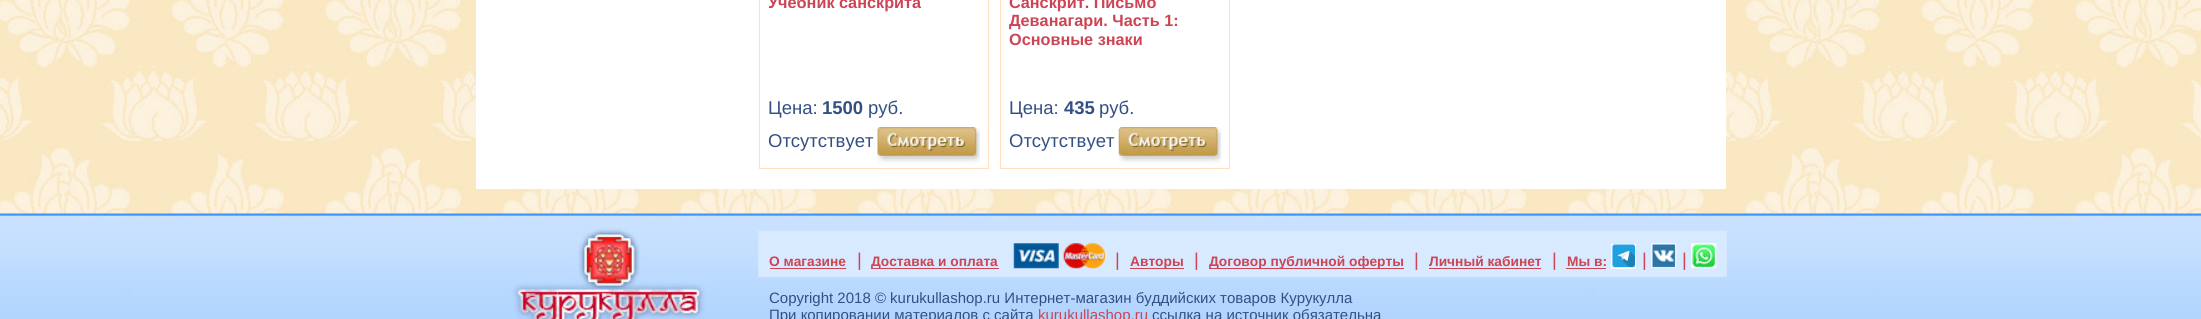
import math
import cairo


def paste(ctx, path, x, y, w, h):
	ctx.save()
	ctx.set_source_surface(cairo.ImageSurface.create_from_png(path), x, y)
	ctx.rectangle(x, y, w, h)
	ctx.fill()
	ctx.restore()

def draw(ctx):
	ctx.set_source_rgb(1, 1, 1)
	ctx.paint()
	paste(ctx, 'media/4.png', 0, 213, 2201, 106)
	paste(ctx, 'media/1.png', 0, 0, 2201, 214)
	ctx.set_source_rgb(1, 1, 1)
	ctx.rectangle(476, 0, 1250, 189)
	ctx.fill()
	ctx.rectangle(759.5, -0.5, 229, 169)
	ctx.set_source_rgb(1, 0.875, 0.753)
	ctx.set_line_width(1)
	ctx.stroke()
	ctx.select_font_face('Liberation Sans', cairo.FONT_SLANT_NORMAL, cairo.FONT_WEIGHT_BOLD)
	ctx.set_font_size(16.25)
	ctx.set_source_rgb(0.804, 0.267, 0.329)
	ctx.move_to(768, 8)
	ctx.show_text('Учебник санскрита')
	ctx.select_font_face('Liberation Sans')
	ctx.set_font_size(18.5)
	ctx.set_source_rgb(0.204, 0.314, 0.514)
	ctx.move_to(768, 114)
	ctx.show_text('Цена:')
	ctx.select_font_face('Liberation Sans', cairo.FONT_SLANT_NORMAL, cairo.FONT_WEIGHT_BOLD)
	ctx.move_to(822, 114)
	ctx.show_text('1500')
	ctx.select_font_face('Liberation Sans')
	ctx.move_to(868, 114)
	ctx.show_text('руб.')
	ctx.move_to(768, 147)
	ctx.show_text('Отсутствует')
	paste(ctx, 'media/2.png', 877, 127, 103, 38)
	ctx.rectangle(1000.5, -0.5, 229, 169)
	ctx.set_source_rgb(1, 0.875, 0.753)
	ctx.stroke()
	ctx.select_font_face('Liberation Sans', cairo.FONT_SLANT_NORMAL, cairo.FONT_WEIGHT_BOLD)
	ctx.set_font_size(16.25)
	ctx.set_source_rgb(0.804, 0.267, 0.329)
	for x, y, s in [
		(1009, 8, 'Санскрит. Письмо'),
		(1009, 26, 'Деванагари. Часть 1:'),
		(1009, 45, 'Основные знаки'),
	]:
		ctx.move_to(x, y)
		ctx.show_text(s)
	ctx.select_font_face('Liberation Sans')
	ctx.set_font_size(18.5)
	ctx.set_source_rgb(0.204, 0.314, 0.514)
	ctx.move_to(1009, 114)
	ctx.show_text('Цена:')
	ctx.select_font_face('Liberation Sans', cairo.FONT_SLANT_NORMAL, cairo.FONT_WEIGHT_BOLD)
	ctx.move_to(1064, 114)
	ctx.show_text('435')
	ctx.select_font_face('Liberation Sans')
	ctx.move_to(1099, 114)
	ctx.show_text('руб.')
	ctx.move_to(1009, 147)
	ctx.show_text('Отсутствует')
	paste(ctx, 'media/3.png', 1118, 127, 104, 38)
	paste(ctx, 'media/5.png', 1013, 243, 46, 26)
	paste(ctx, 'media/6.png', 1063, 243, 42, 26)
	ctx.rectangle(1611.5, 244.5, 24, 24)
	ctx.set_source_rgb(1, 1, 1)
	ctx.stroke()
	paste(ctx, 'media/7.png', 1651, 243, 26, 26)
	paste(ctx, 'media/8.png', 1691, 243, 26, 26)
	ctx.select_font_face('Liberation Sans', cairo.FONT_SLANT_NORMAL, cairo.FONT_WEIGHT_BOLD)
	ctx.set_font_size(13.75)
	ctx.set_source_rgb(0.804, 0.267, 0.329)
	ctx.move_to(769, 266)
	ctx.show_text('О магазине')
	ctx.rectangle(770, 268, 76, 1)
	ctx.fill()
	ctx.select_font_face('Liberation Sans')
	ctx.set_font_size(18.5)
	ctx.move_to(857, 266)
	ctx.show_text('|')
	ctx.rectangle(871, 268, 128, 1)
	ctx.fill()
	ctx.select_font_face('Liberation Sans', cairo.FONT_SLANT_NORMAL, cairo.FONT_WEIGHT_BOLD)
	ctx.set_font_size(13.75)
	ctx.move_to(871, 266)
	ctx.show_text('Доставка и оплата')
	ctx.select_font_face('Liberation Sans')
	ctx.set_font_size(18.5)
	ctx.move_to(1115, 266)
	ctx.show_text('|')
	ctx.rectangle(1130, 268, 54, 1)
	ctx.fill()
	ctx.select_font_face('Liberation Sans', cairo.FONT_SLANT_NORMAL, cairo.FONT_WEIGHT_BOLD)
	ctx.set_font_size(13.75)
	ctx.move_to(1130, 266)
	ctx.show_text('Авторы')
	ctx.select_font_face('Liberation Sans')
	ctx.set_font_size(18.5)
	ctx.move_to(1194, 266)
	ctx.show_text('|')
	ctx.rectangle(1209, 268, 195, 1)
	ctx.fill()
	ctx.select_font_face('Liberation Sans', cairo.FONT_SLANT_NORMAL, cairo.FONT_WEIGHT_BOLD)
	ctx.set_font_size(13.75)
	ctx.move_to(1209, 266)
	ctx.show_text('Договор публичной оферты')
	ctx.select_font_face('Liberation Sans')
	ctx.set_font_size(18.5)
	ctx.move_to(1414, 266)
	ctx.show_text('|')
	ctx.select_font_face('Liberation Sans', cairo.FONT_SLANT_NORMAL, cairo.FONT_WEIGHT_BOLD)
	ctx.set_font_size(13.75)
	ctx.move_to(1429, 266)
	ctx.show_text('Личный кабинет')
	ctx.rectangle(1429, 268, 112, 1)
	ctx.fill()
	ctx.select_font_face('Liberation Sans')
	ctx.set_font_size(18.5)
	ctx.move_to(1552, 266)
	ctx.show_text('|')
	ctx.select_font_face('Liberation Sans', cairo.FONT_SLANT_NORMAL, cairo.FONT_WEIGHT_BOLD)
	ctx.set_font_size(13.75)
	ctx.move_to(1567, 266)
	ctx.show_text('Мы в:')
	ctx.rectangle(1566, 268, 40, 1)
	ctx.fill()
	paste(ctx, 'media/9.png', 1612, 244, 23, 23)
	ctx.select_font_face('Liberation Sans')
	ctx.set_font_size(18.5)
	ctx.move_to(1642, 266)
	ctx.show_text('|')
	ctx.move_to(1682, 266)
	ctx.show_text('|')
	ctx.set_font_size(15)
	ctx.set_source_rgb(0.204, 0.314, 0.514)
	ctx.move_to(769, 303)
	ctx.show_text('Copyright 2018 © kurukullashop.ru Интернет-магазин буддийских товаров Курукулла')
	ctx.move_to(769, 320)
	ctx.show_text('При копировании материалов с сайта')
	ctx.set_source_rgb(0.804, 0.267, 0.329)
	ctx.move_to(1038, 320)
	ctx.show_text('kurukullashop.ru')
	ctx.set_source_rgb(0.204, 0.314, 0.514)
	ctx.move_to(1152, 320)
	ctx.show_text('ссылка на источник обязательна')


surface = cairo.ImageSurface(cairo.FORMAT_RGB24, 2201, 319)
ctx = cairo.Context(surface)
options = cairo.FontOptions()
options.set_hint_metrics(cairo.HINT_METRICS_OFF)
options.set_hint_style(cairo.HINT_STYLE_NONE)
ctx.set_font_options(options)
ctx.set_miter_limit(4)
draw(ctx)
surface.write_to_png('image.png')
